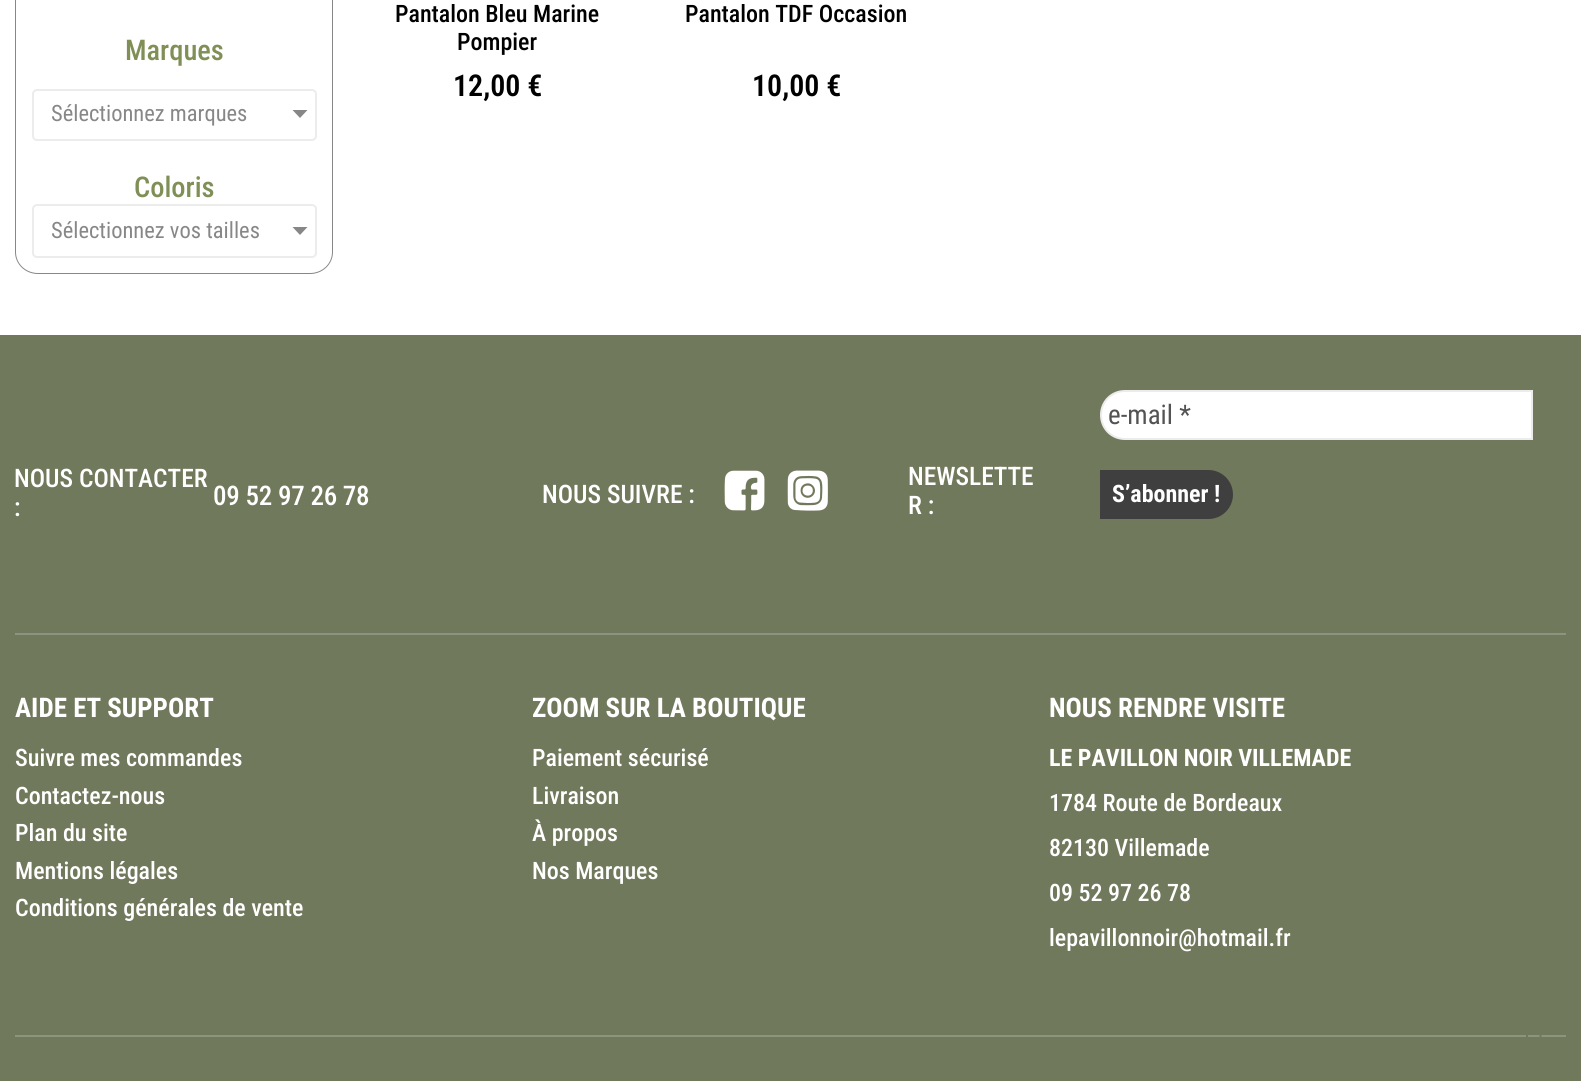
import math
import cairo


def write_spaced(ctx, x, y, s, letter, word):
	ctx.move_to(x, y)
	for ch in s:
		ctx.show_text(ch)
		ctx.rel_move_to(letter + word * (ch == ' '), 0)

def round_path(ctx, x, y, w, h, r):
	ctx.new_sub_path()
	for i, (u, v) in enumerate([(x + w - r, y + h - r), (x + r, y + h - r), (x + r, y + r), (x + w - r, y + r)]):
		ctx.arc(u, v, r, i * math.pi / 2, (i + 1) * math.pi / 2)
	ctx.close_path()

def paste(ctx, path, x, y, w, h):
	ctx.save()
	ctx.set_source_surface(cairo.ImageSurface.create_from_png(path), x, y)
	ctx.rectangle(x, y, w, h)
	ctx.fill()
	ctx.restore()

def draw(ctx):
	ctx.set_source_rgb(1, 1, 1)
	ctx.paint()
	ctx.set_source_rgb(0.529, 0.529, 0.529)
	ctx.set_fill_rule(cairo.FILL_RULE_EVEN_ODD)
	ctx.new_path()
	ctx.move_to(15, -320)
	ctx.line_to(333, -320)
	ctx.line_to(333, 252)
	ctx.curve_to(333, 264, 323, 274, 310, 274)
	ctx.line_to(38, 274)
	ctx.curve_to(25, 274, 15, 264, 15, 252)
	ctx.close_path()
	ctx.move_to(16, -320)
	ctx.line_to(332, -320)
	ctx.line_to(332, 252)
	ctx.curve_to(332, 264, 322, 273, 310, 273)
	ctx.line_to(38, 273)
	ctx.curve_to(26, 273, 16, 264, 16, 252)
	ctx.close_path()
	ctx.fill()
	ctx.select_font_face('Roboto Condensed Medium')
	ctx.set_font_size(28.5)
	ctx.set_source_rgb(0.498, 0.561, 0.337)
	ctx.move_to(125, 60)
	ctx.show_text('Marques')
	round_path(ctx, 33, 90, 283, 50, 4)
	ctx.set_source_rgb(0.922, 0.925, 0.929)
	ctx.stroke()
	ctx.select_font_face('Roboto Condensed')
	ctx.set_font_size(22.5)
	ctx.set_source_rgb(0.529, 0.529, 0.529)
	ctx.move_to(51, 121)
	ctx.show_text('Sélectionnez marques')
	ctx.set_fill_rule(cairo.FILL_RULE_WINDING)
	ctx.new_path()
	ctx.move_to(292.5, 110)
	ctx.line_to(307.5, 110)
	ctx.line_to(300, 118)
	ctx.close_path()
	ctx.fill()
	ctx.select_font_face('Roboto Condensed Medium')
	ctx.set_font_size(28.5)
	ctx.set_source_rgb(0.498, 0.561, 0.337)
	ctx.move_to(134, 197)
	ctx.show_text('Coloris')
	round_path(ctx, 33, 205, 283, 52, 4)
	ctx.set_source_rgb(0.922, 0.925, 0.929)
	ctx.stroke()
	ctx.select_font_face('Roboto Condensed')
	ctx.set_font_size(22.5)
	ctx.set_source_rgb(0.529, 0.529, 0.529)
	ctx.move_to(51, 238)
	ctx.show_text('Sélectionnez vos tailles')
	ctx.new_path()
	ctx.move_to(292.5, 227)
	ctx.line_to(307.5, 227)
	ctx.line_to(300, 235)
	ctx.close_path()
	ctx.fill()
	ctx.select_font_face('Roboto Condensed Medium')
	ctx.set_font_size(24)
	ctx.set_source_rgb(0, 0, 0)
	ctx.move_to(395, 22)
	ctx.show_text('Pantalon Bleu Marine')
	ctx.move_to(457, 50)
	ctx.show_text('Pompier')
	ctx.select_font_face('Roboto Condensed SemiBold')
	ctx.set_font_size(30)
	ctx.move_to(453, 96)
	ctx.show_text('12,00 €')
	ctx.select_font_face('Roboto Condensed Medium')
	ctx.set_font_size(24)
	ctx.move_to(685, 22)
	ctx.show_text('Pantalon TDF Occasion')
	ctx.select_font_face('Roboto Condensed SemiBold')
	ctx.set_font_size(30)
	ctx.move_to(752, 96)
	ctx.show_text('10,00 €')
	ctx.set_source_rgb(0.443, 0.475, 0.361)
	ctx.rectangle(0, 335, 1581, 746)
	ctx.fill()
	ctx.select_font_face('Roboto Condensed Medium')
	ctx.set_font_size(25.5)
	ctx.set_source_rgb(1, 1, 1)
	ctx.move_to(14, 487)
	ctx.show_text('NOUS CONTACTER')
	ctx.move_to(14, 516)
	ctx.show_text(':')
	ctx.set_font_size(27)
	write_spaced(ctx, 213, 505, '09 52 97 26 78', -0.25, 0)
	ctx.set_font_size(25.5)
	ctx.move_to(542, 503)
	ctx.show_text('NOUS SUIVRE :')
	paste(ctx, 'media/1.png', 724, 470, 41, 41)
	paste(ctx, 'media/2.png', 787, 470, 41, 41)
	ctx.move_to(908, 485)
	ctx.show_text('NEWSLETTE')
	ctx.move_to(908, 514)
	ctx.show_text('R :')
	ctx.new_path()
	ctx.move_to(1125, 391)
	ctx.line_to(1532, 391)
	ctx.line_to(1532, 439)
	ctx.line_to(1125, 439)
	ctx.curve_to(1111.5, 439, 1101, 428.5, 1101, 415)
	ctx.curve_to(1101, 401.5, 1111.5, 391, 1125, 391)
	ctx.close_path()
	ctx.fill_preserve()
	ctx.set_source_rgb(0.922, 0.922, 0.922)
	ctx.stroke()
	ctx.select_font_face('Roboto Condensed')
	ctx.set_font_size(27)
	ctx.set_source_rgb(0.325, 0.325, 0.325)
	ctx.move_to(1108, 424)
	ctx.show_text('e-mail *')
	ctx.set_source_rgb(0.247, 0.247, 0.247)
	ctx.new_path()
	ctx.move_to(1100, 470)
	ctx.line_to(1208.5, 470)
	ctx.curve_to(1222, 470, 1233, 481, 1233, 494.5)
	ctx.curve_to(1233, 508, 1222, 519, 1208.5, 519)
	ctx.line_to(1100, 519)
	ctx.close_path()
	ctx.fill()
	ctx.select_font_face('Roboto Condensed', cairo.FONT_SLANT_NORMAL, cairo.FONT_WEIGHT_BOLD)
	ctx.set_font_size(24)
	ctx.set_source_rgb(1, 1, 1)
	ctx.move_to(1112, 502)
	ctx.show_text('S’abonner !')
	ctx.set_source_rgb(0.553, 0.58, 0.49)
	ctx.rectangle(15, 633, 1551, 2)
	ctx.fill()
	ctx.rectangle(15, 1035, 1551, 2)
	ctx.fill()
	ctx.set_font_size(27)
	ctx.set_source_rgb(1, 1, 1)
	ctx.move_to(15, 717)
	ctx.show_text('AIDE ET SUPPORT')
	ctx.select_font_face('Roboto Condensed Medium')
	ctx.set_font_size(24)
	for x, y, s in [
		(15, 766, 'Suivre mes commandes'),
		(15, 804, 'Contactez-nous'),
		(15, 841, 'Plan du site'),
		(15, 879, 'Mentions légales'),
		(15, 916, 'Conditions générales de vente'),
	]:
		ctx.move_to(x, y)
		ctx.show_text(s)
	ctx.select_font_face('Roboto Condensed', cairo.FONT_SLANT_NORMAL, cairo.FONT_WEIGHT_BOLD)
	ctx.set_font_size(27)
	ctx.move_to(532, 717)
	ctx.show_text('ZOOM SUR LA BOUTIQUE')
	ctx.select_font_face('Roboto Condensed Medium')
	ctx.set_font_size(24)
	for x, y, s in [
		(532, 766, 'Paiement sécurisé'),
		(532, 804, 'Livraison'),
		(532, 841, 'À propos'),
		(532, 879, 'Nos Marques'),
	]:
		ctx.move_to(x, y)
		ctx.show_text(s)
	ctx.select_font_face('Roboto Condensed', cairo.FONT_SLANT_NORMAL, cairo.FONT_WEIGHT_BOLD)
	ctx.set_font_size(27)
	ctx.move_to(1049, 717)
	ctx.show_text('NOUS RENDRE VISITE')
	ctx.set_font_size(24)
	ctx.move_to(1049, 766)
	ctx.show_text('LE PAVILLON NOIR VILLEMADE')
	ctx.select_font_face('Roboto Condensed Medium')
	for x, y, s in [
		(1049, 811, '1784 Route de Bordeaux'),
		(1049, 856, '82130 Villemade'),
		(1049, 901, '09 52 97 26 78'),
		(1049, 946, 'lepavillonnoir@hotmail.fr'),
	]:
		ctx.move_to(x, y)
		ctx.show_text(s)
	ctx.set_source_rgb(0.443, 0.475, 0.361)
	ctx.new_path()
	ctx.move_to(1526, 1053)
	ctx.line_to(1526, 1026)
	ctx.line_to(1541.5, 1026)
	ctx.line_to(1541.5, 1053)
	ctx.close_path()
	ctx.move_to(1528, 1051)
	ctx.line_to(1539.5, 1051)
	ctx.line_to(1539.5, 1028)
	ctx.line_to(1528, 1028)
	ctx.close_path()
	ctx.fill()


surface = cairo.ImageSurface(cairo.FORMAT_RGB24, 1581, 1081)
ctx = cairo.Context(surface)
options = cairo.FontOptions()
options.set_hint_metrics(cairo.HINT_METRICS_OFF)
options.set_hint_style(cairo.HINT_STYLE_NONE)
ctx.set_font_options(options)
ctx.set_miter_limit(4)
draw(ctx)
surface.write_to_png('image.png')
